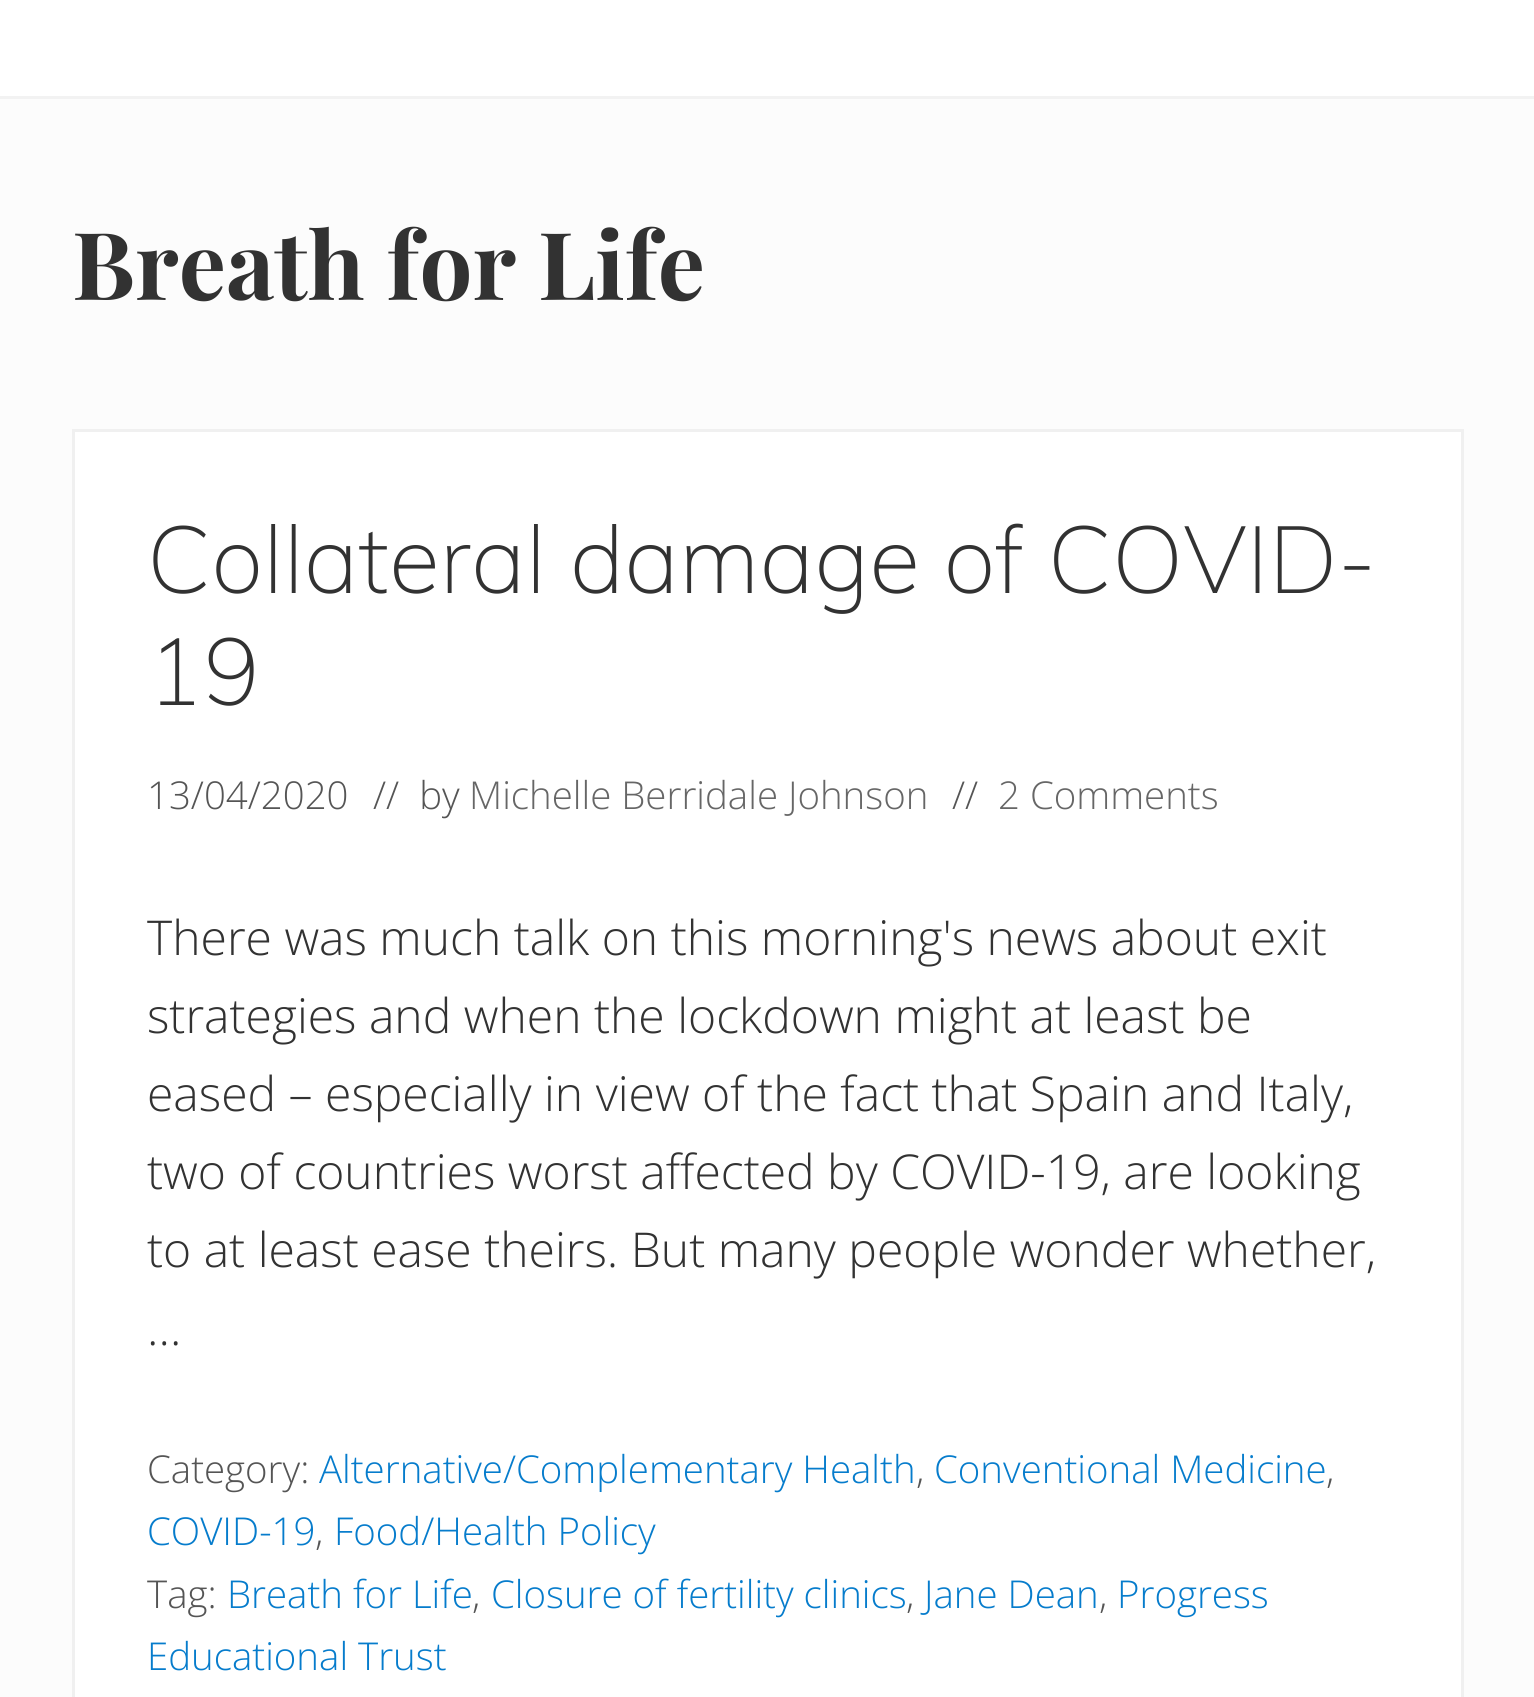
import math
import cairo


def draw(ctx):
	ctx.set_source_rgb(0.988, 0.988, 0.988)
	ctx.paint()
	ctx.set_source_rgb(1, 1, 1)
	ctx.rectangle(0, 0, 1534, 96)
	ctx.fill()
	ctx.set_source_rgb(0.949, 0.949, 0.949)
	ctx.rectangle(0, 96, 1534, 3)
	ctx.fill()
	ctx.select_font_face('Playfair Display', cairo.FONT_SLANT_NORMAL, cairo.FONT_WEIGHT_BOLD)
	ctx.set_font_size(93.75)
	ctx.set_source_rgb(0.196, 0.196, 0.196)
	ctx.move_to(72, 300)
	ctx.show_text('Breath for Life')
	ctx.set_source_rgb(1, 1, 1)
	ctx.rectangle(73.5, 430.5, 1389, 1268)
	ctx.fill_preserve()
	ctx.set_source_rgb(0.941, 0.941, 0.941)
	ctx.set_line_width(3)
	ctx.stroke()
	ctx.select_font_face('Muli ExtraLight')
	ctx.set_source_rgb(0.196, 0.196, 0.196)
	ctx.move_to(147, 593)
	ctx.show_text('Collateral damage of COVID-')
	ctx.move_to(147, 705)
	ctx.show_text('19')
	ctx.select_font_face('Open Sans Light')
	ctx.set_font_size(38.4)
	ctx.set_source_rgb(0.333, 0.333, 0.333)
	ctx.move_to(147, 809)
	ctx.show_text('13/04/2020')
	ctx.move_to(373, 809)
	ctx.show_text('//  by')
	ctx.set_source_rgb(0.4, 0.4, 0.4)
	ctx.move_to(469, 809)
	ctx.show_text('Michelle Berridale Johnson')
	ctx.set_source_rgb(0.333, 0.333, 0.333)
	ctx.move_to(952, 809)
	ctx.show_text('//')
	ctx.set_source_rgb(0.4, 0.4, 0.4)
	ctx.move_to(998, 809)
	ctx.show_text('2 Comments')
	ctx.set_font_size(48)
	ctx.set_source_rgb(0.196, 0.196, 0.196)
	for x, y, s in [
		(147, 955, 'There was much talk on this morning\'s news about exit'),
		(147, 1033, 'strategies and when the lockdown might at least be'),
		(147, 1111, 'eased – especially in view of the fact that Spain and Italy,'),
		(147, 1189, 'two of countries worst affected by COVID-19, are looking'),
		(147, 1267, 'to at least ease theirs. But many people wonder whether,'),
		(147, 1345, '…'),
	]:
		ctx.move_to(x, y)
		ctx.show_text(s)
	ctx.set_font_size(38.4)
	ctx.set_source_rgb(0.333, 0.333, 0.333)
	ctx.move_to(147, 1483)
	ctx.show_text('Category:')
	ctx.set_source_rgb(0.024, 0.486, 0.8)
	ctx.move_to(319, 1483)
	ctx.show_text('Alternative/Complementary Health')
	ctx.set_source_rgb(0.333, 0.333, 0.333)
	ctx.move_to(916, 1483)
	ctx.show_text(',')
	ctx.set_source_rgb(0.024, 0.486, 0.8)
	ctx.move_to(934, 1483)
	ctx.show_text('Conventional Medicine')
	ctx.set_source_rgb(0.333, 0.333, 0.333)
	ctx.move_to(1326, 1483)
	ctx.show_text(',')
	ctx.set_source_rgb(0.024, 0.486, 0.8)
	ctx.move_to(147, 1545)
	ctx.show_text('COVID-19')
	ctx.set_source_rgb(0.333, 0.333, 0.333)
	ctx.move_to(315, 1545)
	ctx.show_text(',')
	ctx.set_source_rgb(0.024, 0.486, 0.8)
	ctx.move_to(334, 1545)
	ctx.show_text('Food/Health Policy')
	ctx.set_source_rgb(0.333, 0.333, 0.333)
	ctx.move_to(147, 1608)
	ctx.show_text('Tag:')
	ctx.set_source_rgb(0.024, 0.486, 0.8)
	ctx.move_to(227, 1608)
	ctx.show_text('Breath for Life')
	ctx.set_source_rgb(0.333, 0.333, 0.333)
	ctx.move_to(472, 1608)
	ctx.show_text(',')
	ctx.set_source_rgb(0.024, 0.486, 0.8)
	ctx.move_to(491, 1608)
	ctx.show_text('Closure of fertility clinics')
	ctx.set_source_rgb(0.333, 0.333, 0.333)
	ctx.move_to(906, 1608)
	ctx.show_text(',')
	ctx.set_source_rgb(0.024, 0.486, 0.8)
	ctx.move_to(924, 1608)
	ctx.show_text('Jane Dean')
	ctx.set_source_rgb(0.333, 0.333, 0.333)
	ctx.move_to(1099, 1608)
	ctx.show_text(',')
	ctx.set_source_rgb(0.024, 0.486, 0.8)
	ctx.move_to(1117, 1608)
	ctx.show_text('Progress')
	ctx.move_to(147, 1670)
	ctx.show_text('Educational Trust')


surface = cairo.ImageSurface(cairo.FORMAT_RGB24, 1534, 1697)
ctx = cairo.Context(surface)
options = cairo.FontOptions()
options.set_hint_metrics(cairo.HINT_METRICS_OFF)
options.set_hint_style(cairo.HINT_STYLE_NONE)
ctx.set_font_options(options)
ctx.set_miter_limit(4)
draw(ctx)
surface.write_to_png('image.png')
